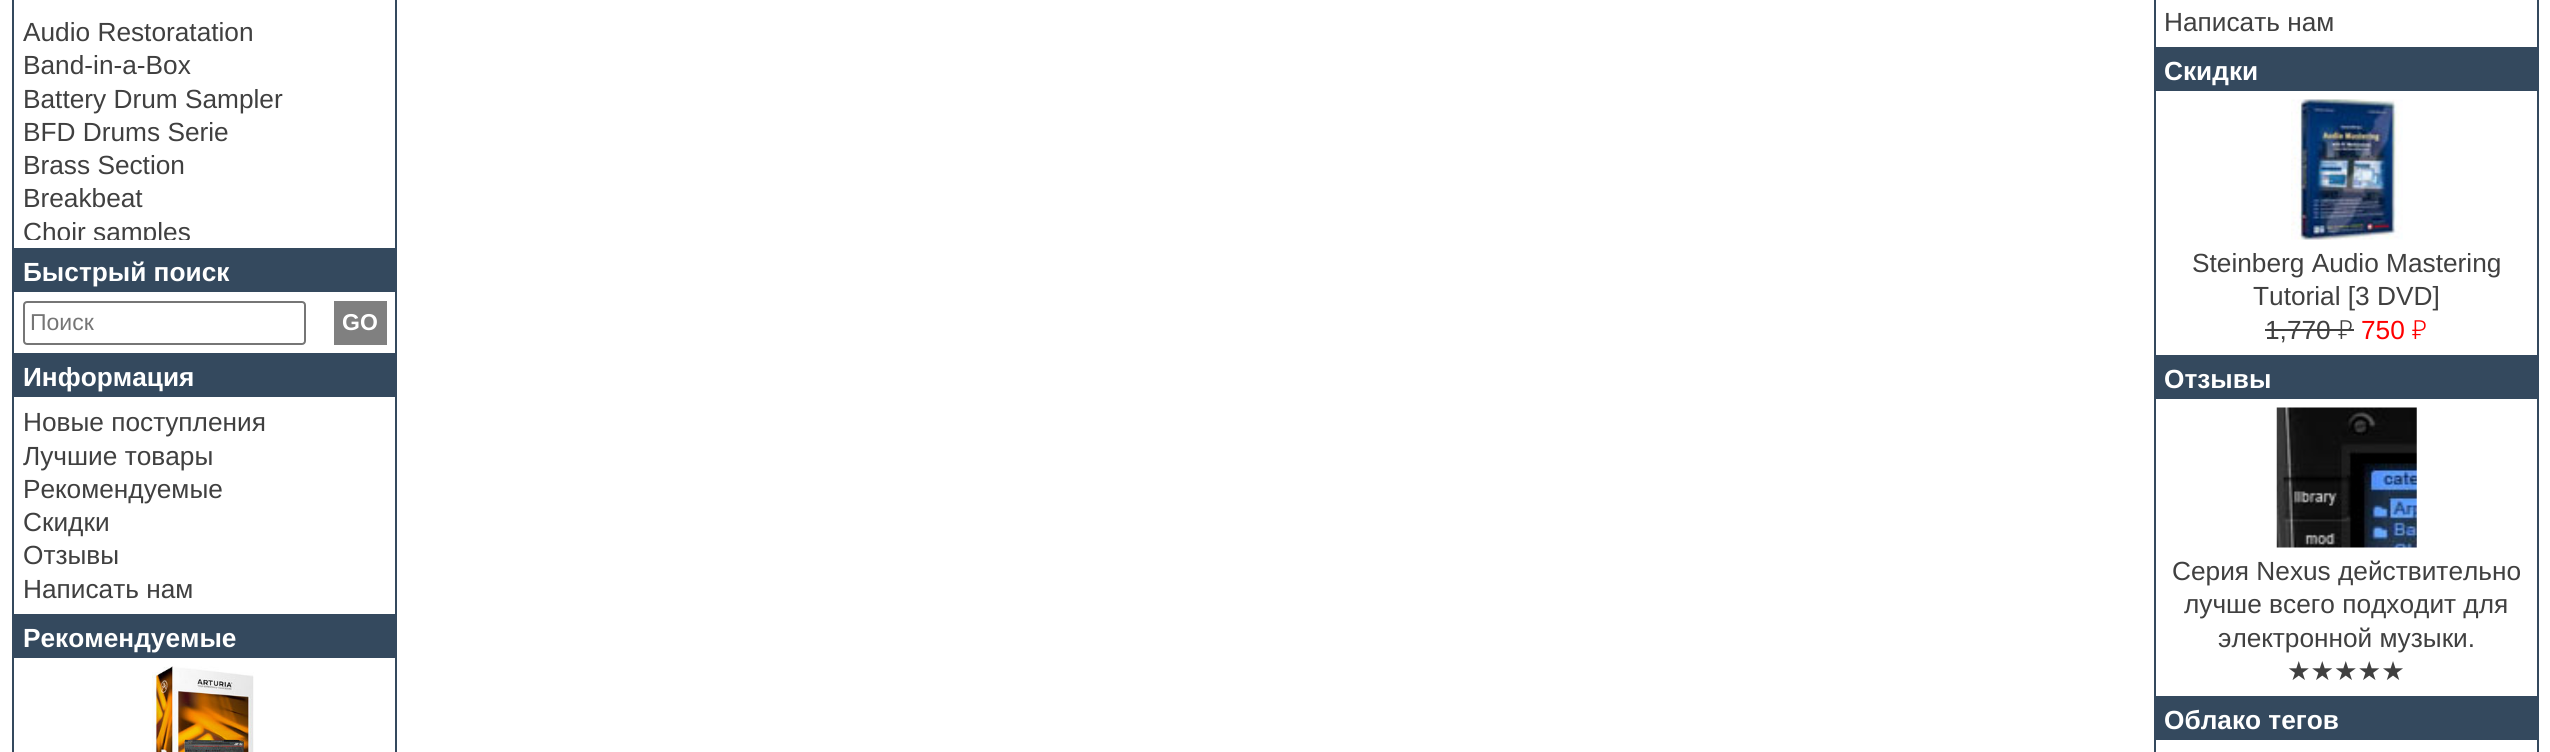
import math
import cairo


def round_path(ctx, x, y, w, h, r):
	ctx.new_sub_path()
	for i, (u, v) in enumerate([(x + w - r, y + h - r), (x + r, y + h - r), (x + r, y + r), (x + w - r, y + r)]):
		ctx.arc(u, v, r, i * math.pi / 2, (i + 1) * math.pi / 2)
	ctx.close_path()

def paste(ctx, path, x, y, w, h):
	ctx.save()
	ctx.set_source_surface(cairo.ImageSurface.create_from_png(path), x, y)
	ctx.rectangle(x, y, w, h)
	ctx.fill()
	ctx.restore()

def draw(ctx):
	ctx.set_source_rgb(1, 1, 1)
	ctx.paint()
	ctx.rectangle(13, -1, 383, 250)
	ctx.set_source_rgb(0.204, 0.286, 0.369)
	ctx.stroke()
	ctx.select_font_face('Liberation Sans')
	ctx.set_font_size(26.25)
	ctx.set_source_rgb(0.251, 0.251, 0.251)
	for x, y, s in [
		(23, 41, 'Audio Restoratation'),
		(23, 74, 'Band-in-a-Box'),
		(23, 108, 'Battery Drum Sampler'),
		(23, 141, 'BFD Drums Serie'),
		(23, 174, 'Brass Section'),
		(23, 207, 'Breakbeat'),
	]:
		ctx.move_to(x, y)
		ctx.show_text(s)
	ctx.save()
	ctx.rectangle(23, 0, 364, 240)
	ctx.clip()
	ctx.move_to(23, 241)
	ctx.show_text('Choir samples')
	ctx.restore()
	ctx.rectangle(13, 251, 383, 103)
	ctx.set_source_rgb(0.204, 0.286, 0.369)
	ctx.stroke()
	ctx.rectangle(14, 252, 381, 40)
	ctx.fill()
	ctx.select_font_face('Liberation Sans', cairo.FONT_SLANT_NORMAL, cairo.FONT_WEIGHT_BOLD)
	ctx.set_source_rgb(1, 1, 1)
	ctx.move_to(23, 281)
	ctx.show_text('Быстрый поиск')
	round_path(ctx, 24, 302, 281, 42, 3)
	ctx.set_source_rgb(0.463, 0.463, 0.463)
	ctx.stroke()
	ctx.select_font_face('Liberation Sans')
	ctx.set_font_size(23)
	ctx.set_source_rgb(0.459, 0.459, 0.459)
	ctx.move_to(30, 330)
	ctx.show_text('Поиск')
	ctx.set_source_rgb(0.502, 0.502, 0.502)
	ctx.rectangle(334, 301, 53, 44)
	ctx.fill()
	ctx.select_font_face('Liberation Sans', cairo.FONT_SLANT_NORMAL, cairo.FONT_WEIGHT_BOLD)
	ctx.set_source_rgb(1, 1, 1)
	ctx.move_to(342, 330)
	ctx.show_text('GO')
	ctx.rectangle(13, 356, 383, 259)
	ctx.set_source_rgb(0.204, 0.286, 0.369)
	ctx.stroke()
	ctx.rectangle(14, 357, 381, 40)
	ctx.fill()
	ctx.set_font_size(26.25)
	ctx.set_source_rgb(1, 1, 1)
	ctx.move_to(23, 386)
	ctx.show_text('Информация')
	ctx.select_font_face('Liberation Sans')
	ctx.set_source_rgb(0.251, 0.251, 0.251)
	for x, y, s in [
		(23, 431, 'Новые поступления'),
		(23, 465, 'Лучшие товары'),
		(23, 498, 'Рекомендуемые'),
		(23, 531, 'Скидки'),
		(23, 564, 'Отзывы'),
		(23, 598, 'Написать нам'),
	]:
		ctx.move_to(x, y)
		ctx.show_text(s)
	ctx.rectangle(13, 617, 383, 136)
	ctx.set_source_rgb(0.204, 0.286, 0.369)
	ctx.stroke()
	ctx.rectangle(14, 618, 381, 40)
	ctx.fill()
	ctx.select_font_face('Liberation Sans', cairo.FONT_SLANT_NORMAL, cairo.FONT_WEIGHT_BOLD)
	ctx.set_source_rgb(1, 1, 1)
	ctx.move_to(23, 647)
	ctx.show_text('Рекомендуемые')
	paste(ctx, 'media/1.png', 152, 666, 102, 86)
	ctx.rectangle(2155, -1, 383, 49)
	ctx.set_source_rgb(0.204, 0.286, 0.369)
	ctx.stroke()
	ctx.select_font_face('Liberation Sans')
	ctx.set_source_rgb(0.251, 0.251, 0.251)
	ctx.move_to(2164, 31)
	ctx.show_text('Написать нам')
	ctx.rectangle(2155, 50, 383, 306)
	ctx.set_source_rgb(0.204, 0.286, 0.369)
	ctx.stroke()
	ctx.rectangle(2156, 51, 381, 40)
	ctx.fill()
	ctx.select_font_face('Liberation Sans', cairo.FONT_SLANT_NORMAL, cairo.FONT_WEIGHT_BOLD)
	ctx.set_source_rgb(1, 1, 1)
	ctx.move_to(2164, 80)
	ctx.show_text('Скидки')
	paste(ctx, 'media/2.png', 2291, 99, 112, 141)
	ctx.select_font_face('Liberation Sans')
	ctx.set_source_rgb(0.251, 0.251, 0.251)
	for x, y, s in [
		(2192, 272, 'Steinberg Audio Mastering'),
		(2253, 305, 'Tutorial [3 DVD]'),
		(2265, 339, '1,770'),
	]:
		ctx.move_to(x, y)
		ctx.show_text(s)
	ctx.select_font_face('Noto Sans Light')
	ctx.move_to(2338, 339)
	ctx.show_text('₽')
	ctx.rectangle(2265, 329, 89, 2)
	ctx.fill()
	ctx.select_font_face('Liberation Sans')
	ctx.set_source_rgb(1, 0, 0)
	ctx.move_to(2361, 339)
	ctx.show_text('750')
	ctx.select_font_face('Noto Sans Light')
	ctx.move_to(2412, 339)
	ctx.show_text('₽')
	ctx.rectangle(2155, 358, 383, 339)
	ctx.set_source_rgb(0.204, 0.286, 0.369)
	ctx.stroke()
	ctx.rectangle(2156, 359, 381, 40)
	ctx.fill()
	ctx.select_font_face('Liberation Sans', cairo.FONT_SLANT_NORMAL, cairo.FONT_WEIGHT_BOLD)
	ctx.set_source_rgb(1, 1, 1)
	ctx.move_to(2164, 388)
	ctx.show_text('Отзывы')
	paste(ctx, 'media/3.png', 2276, 407, 141, 141)
	ctx.select_font_face('Liberation Sans')
	ctx.set_source_rgb(0.251, 0.251, 0.251)
	for x, y, s in [
		(2172, 580, 'Серия Nexus действительно'),
		(2184, 613, 'лучше всего подходит для'),
		(2218, 647, 'электронной музыки.'),
	]:
		ctx.move_to(x, y)
		ctx.show_text(s)
	ctx.select_font_face('DejaVu Sans')
	ctx.move_to(2287, 680)
	ctx.show_text('★★★★★')
	ctx.rectangle(2155, 699, 383, 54)
	ctx.set_source_rgb(0.204, 0.286, 0.369)
	ctx.stroke()
	ctx.rectangle(2156, 700, 381, 40)
	ctx.fill()
	ctx.select_font_face('Liberation Sans', cairo.FONT_SLANT_NORMAL, cairo.FONT_WEIGHT_BOLD)
	ctx.set_source_rgb(1, 1, 1)
	ctx.move_to(2164, 729)
	ctx.show_text('Облако тегов')


surface = cairo.ImageSurface(cairo.FORMAT_RGB24, 2550, 752)
ctx = cairo.Context(surface)
options = cairo.FontOptions()
options.set_hint_metrics(cairo.HINT_METRICS_OFF)
options.set_hint_style(cairo.HINT_STYLE_NONE)
ctx.set_font_options(options)
ctx.set_miter_limit(4)
draw(ctx)
surface.write_to_png('image.png')
